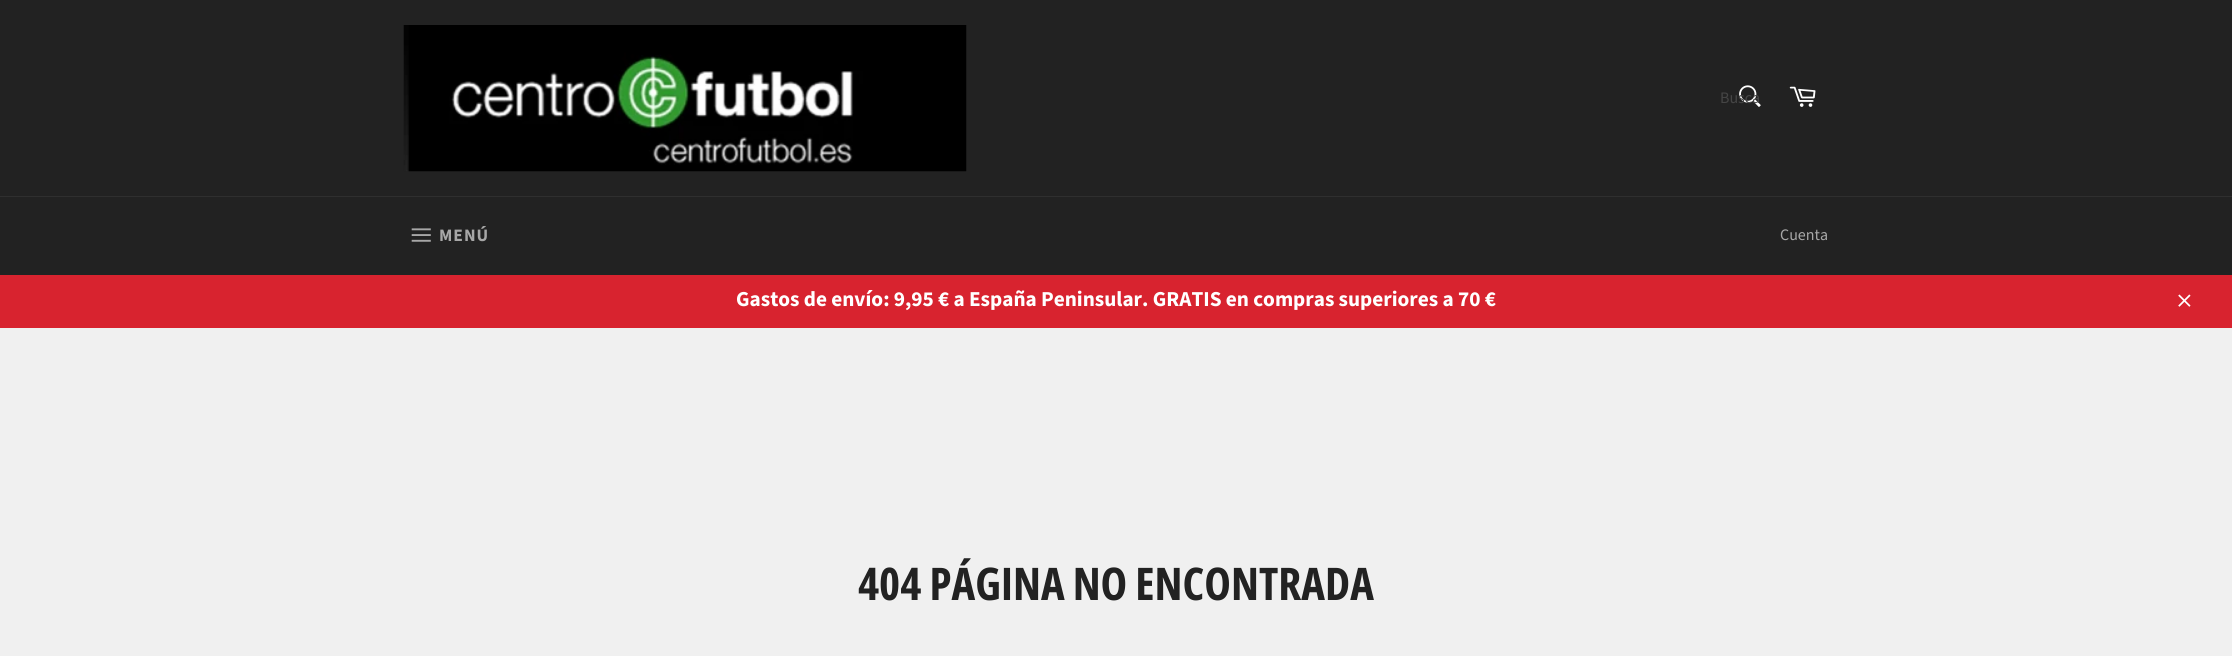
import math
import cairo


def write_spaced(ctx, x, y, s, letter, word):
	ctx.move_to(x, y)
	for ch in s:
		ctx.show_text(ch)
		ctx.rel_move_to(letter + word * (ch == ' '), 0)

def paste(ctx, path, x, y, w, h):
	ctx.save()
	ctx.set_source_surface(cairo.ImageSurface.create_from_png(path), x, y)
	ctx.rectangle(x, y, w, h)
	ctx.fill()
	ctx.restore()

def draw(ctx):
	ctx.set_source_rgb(0.941, 0.941, 0.941)
	ctx.paint()
	ctx.set_source_rgb(0.133, 0.133, 0.133)
	ctx.rectangle(0, 0, 2232, 196)
	ctx.fill()
	paste(ctx, 'media/1.png', 403, 25, 564, 147)
	paste(ctx, 'media/2.png', 1739, 85, 22, 22)
	ctx.select_font_face('Source Sans Pro')
	ctx.set_font_size(16)
	ctx.set_source_rgb(0.271, 0.271, 0.271)
	ctx.move_to(1720, 103)
	ctx.show_text('Busca')
	paste(ctx, 'media/3.png', 1789, 86, 27, 21)
	ctx.set_source_rgb(0.133, 0.133, 0.133)
	ctx.rectangle(0, 197, 2232, 78)
	ctx.fill()
	ctx.set_source_rgb(0.184, 0.184, 0.184)
	ctx.rectangle(0, 196, 2232, 1)
	ctx.fill()
	paste(ctx, 'media/4.png', 411, 228, 20, 14)
	ctx.select_font_face('Source Sans Pro', cairo.FONT_SLANT_NORMAL, cairo.FONT_WEIGHT_BOLD)
	ctx.set_font_size(17.5)
	ctx.set_source_rgb(0.655, 0.655, 0.655)
	write_spaced(ctx, 439, 241, 'MENÚ', 1, 0)
	ctx.select_font_face('Source Sans Pro')
	ctx.set_font_size(16)
	ctx.move_to(1780, 240)
	ctx.show_text('Cuenta')
	ctx.set_source_rgb(0.847, 0.137, 0.184)
	ctx.rectangle(0, 275, 2232, 53)
	ctx.fill()
	ctx.select_font_face('Source Sans Pro', cairo.FONT_SLANT_NORMAL, cairo.FONT_WEIGHT_BOLD)
	ctx.set_font_size(21.25)
	ctx.set_source_rgb(1, 1, 1)
	ctx.move_to(736, 306)
	ctx.show_text('Gastos de envío: 9,95 € a España Peninsular. GRATIS en compras superiores a 70 €')
	paste(ctx, 'media/5.png', 2178, 294, 13, 13)
	ctx.select_font_face('Open Sans Condensed', cairo.FONT_SLANT_NORMAL, cairo.FONT_WEIGHT_BOLD)
	ctx.set_font_size(45)
	ctx.set_source_rgb(0.133, 0.133, 0.133)
	ctx.move_to(858, 600)
	ctx.show_text('404 PÁGINA NO ENCONTRADA')


surface = cairo.ImageSurface(cairo.FORMAT_RGB24, 2232, 656)
ctx = cairo.Context(surface)
options = cairo.FontOptions()
options.set_hint_metrics(cairo.HINT_METRICS_OFF)
options.set_hint_style(cairo.HINT_STYLE_NONE)
ctx.set_font_options(options)
ctx.set_miter_limit(4)
draw(ctx)
surface.write_to_png('image.png')
